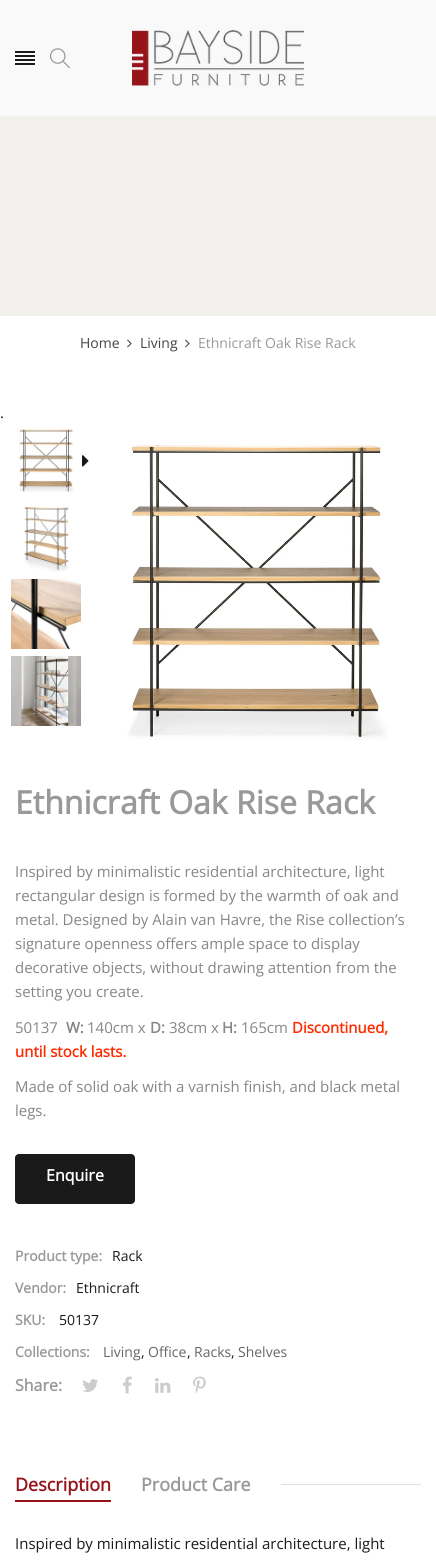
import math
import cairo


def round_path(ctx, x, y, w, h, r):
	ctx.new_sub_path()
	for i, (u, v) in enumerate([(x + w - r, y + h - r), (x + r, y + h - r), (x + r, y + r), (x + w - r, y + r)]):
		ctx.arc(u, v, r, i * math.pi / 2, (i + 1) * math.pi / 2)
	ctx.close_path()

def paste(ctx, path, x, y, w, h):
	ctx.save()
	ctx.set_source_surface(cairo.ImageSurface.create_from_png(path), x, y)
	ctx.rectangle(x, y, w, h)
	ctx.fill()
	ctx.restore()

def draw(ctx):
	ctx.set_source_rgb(1, 1, 1)
	ctx.paint()
	ctx.set_source_rgb(0.973, 0.973, 0.973)
	ctx.rectangle(0, 0, 436, 116)
	ctx.fill()
	ctx.set_source_rgb(0.102, 0.102, 0.102)
	ctx.rectangle(15, 51, 20, 2)
	ctx.rectangle(15, 55, 20, 2)
	ctx.rectangle(15, 59, 20, 2)
	ctx.rectangle(15, 63, 20, 2)
	ctx.fill()
	paste(ctx, 'media/1.png', 50, 48, 20, 21)
	paste(ctx, 'media/2.png', 132, 30, 172, 56)
	ctx.set_source_rgb(0.945, 0.941, 0.925)
	ctx.rectangle(0, 116, 436, 200)
	ctx.fill()
	ctx.select_font_face('Open Sans')
	ctx.set_font_size(14)
	ctx.set_source_rgb(0.267, 0.267, 0.267)
	ctx.move_to(80, 348)
	ctx.show_text('Home')
	paste(ctx, 'media/3.png', 127, 339, 5, 9)
	ctx.move_to(140, 348)
	ctx.show_text('Living')
	paste(ctx, 'media/3.png', 185, 339, 5, 9)
	ctx.set_source_rgb(0.6, 0.6, 0.6)
	ctx.move_to(198, 348)
	ctx.show_text('Ethnicraft Oak Rise Rack')
	ctx.set_font_size(15)
	ctx.set_source_rgb(0.102, 0.102, 0.102)
	ctx.move_to(0, 418)
	ctx.show_text('.')
	paste(ctx, 'media/4.png', 19, 429, 55, 64)
	paste(ctx, 'media/5.png', 82, 455, 7, 12)
	paste(ctx, 'media/6.png', 24, 506, 45, 66)
	paste(ctx, 'media/7.png', 11, 579, 70, 70)
	paste(ctx, 'media/8.png', 11, 656, 70, 70)
	paste(ctx, 'media/9.png', 127, 445, 261, 295)
	ctx.select_font_face('Open Sans', cairo.FONT_SLANT_NORMAL, cairo.FONT_WEIGHT_BOLD)
	ctx.set_font_size(32)
	ctx.set_source_rgb(0.6, 0.6, 0.6)
	ctx.move_to(15, 814)
	ctx.show_text('Ethnicraft Oak Rise Rack')
	ctx.select_font_face('Open Sans')
	ctx.set_font_size(15)
	ctx.set_source_rgb(0.525, 0.525, 0.525)
	for x, y, s in [
		(15, 877, 'Inspired by minimalistic residential architecture, light'),
		(15, 901, 'rectangular design is formed by the warmth of oak and'),
		(15, 925, 'metal. Designed by Alain van Havre, the Rise collection’s'),
		(15, 949, 'signature openness offers ample space to display'),
		(15, 973, 'decorative objects, without drawing attention from the'),
		(15, 997, 'setting you create.'),
		(15, 1033, '50137'),
	]:
		ctx.move_to(x, y)
		ctx.show_text(s)
	ctx.select_font_face('Open Sans', cairo.FONT_SLANT_NORMAL, cairo.FONT_WEIGHT_BOLD)
	ctx.move_to(66, 1033)
	ctx.show_text('W:')
	ctx.select_font_face('Open Sans')
	ctx.move_to(87, 1033)
	ctx.show_text('140cm x')
	ctx.select_font_face('Open Sans', cairo.FONT_SLANT_NORMAL, cairo.FONT_WEIGHT_BOLD)
	ctx.move_to(150, 1033)
	ctx.show_text('D:')
	ctx.select_font_face('Open Sans')
	ctx.move_to(169, 1033)
	ctx.show_text('38cm x')
	ctx.select_font_face('Open Sans', cairo.FONT_SLANT_NORMAL, cairo.FONT_WEIGHT_BOLD)
	ctx.move_to(222, 1033)
	ctx.show_text('H:')
	ctx.select_font_face('Open Sans')
	ctx.move_to(241, 1033)
	ctx.show_text('165cm')
	ctx.select_font_face('Open Sans', cairo.FONT_SLANT_NORMAL, cairo.FONT_WEIGHT_BOLD)
	ctx.set_source_rgb(1, 0.165, 0)
	ctx.move_to(292, 1033)
	ctx.show_text('Discontinued,')
	ctx.move_to(15, 1057)
	ctx.show_text('until stock lasts.')
	ctx.select_font_face('Open Sans')
	ctx.set_source_rgb(0.525, 0.525, 0.525)
	ctx.move_to(15, 1092)
	ctx.show_text('Made of solid oak with a varnish finish, and black metal')
	ctx.move_to(15, 1116)
	ctx.show_text('legs.')
	ctx.set_source_rgb(0.102, 0.102, 0.102)
	round_path(ctx, 15.5, 1154.5, 119, 49, 3.5)
	ctx.fill_preserve()
	ctx.set_line_width(1)
	ctx.stroke()
	ctx.select_font_face('Open Sans', cairo.FONT_SLANT_NORMAL, cairo.FONT_WEIGHT_BOLD)
	ctx.set_font_size(16)
	ctx.set_source_rgb(1, 1, 1)
	ctx.move_to(46, 1181)
	ctx.show_text('Enquire')
	ctx.set_font_size(14)
	ctx.set_source_rgb(0.6, 0.6, 0.6)
	ctx.move_to(15, 1261)
	ctx.show_text('Product type:')
	ctx.select_font_face('Open Sans')
	ctx.set_source_rgb(0.102, 0.102, 0.102)
	ctx.move_to(112, 1261)
	ctx.show_text('Rack')
	ctx.select_font_face('Open Sans', cairo.FONT_SLANT_NORMAL, cairo.FONT_WEIGHT_BOLD)
	ctx.set_source_rgb(0.6, 0.6, 0.6)
	ctx.move_to(15, 1293)
	ctx.show_text('Vendor:')
	ctx.select_font_face('Open Sans')
	ctx.set_source_rgb(0.102, 0.102, 0.102)
	ctx.move_to(76, 1293)
	ctx.show_text('Ethnicraft')
	ctx.select_font_face('Open Sans', cairo.FONT_SLANT_NORMAL, cairo.FONT_WEIGHT_BOLD)
	ctx.set_source_rgb(0.6, 0.6, 0.6)
	ctx.move_to(15, 1325)
	ctx.show_text('SKU:')
	ctx.select_font_face('Open Sans')
	ctx.set_source_rgb(0.102, 0.102, 0.102)
	ctx.move_to(59, 1325)
	ctx.show_text('50137')
	ctx.select_font_face('Open Sans', cairo.FONT_SLANT_NORMAL, cairo.FONT_WEIGHT_BOLD)
	ctx.set_source_rgb(0.6, 0.6, 0.6)
	ctx.move_to(15, 1357)
	ctx.show_text('Collections:')
	ctx.select_font_face('Open Sans')
	ctx.set_source_rgb(0.4, 0.4, 0.4)
	ctx.move_to(103, 1357)
	ctx.show_text('Living')
	ctx.set_source_rgb(0.102, 0.102, 0.102)
	ctx.move_to(141, 1357)
	ctx.show_text(',')
	ctx.set_source_rgb(0.4, 0.4, 0.4)
	ctx.move_to(148, 1357)
	ctx.show_text('Office')
	ctx.set_source_rgb(0.102, 0.102, 0.102)
	ctx.move_to(187, 1357)
	ctx.show_text(',')
	ctx.set_source_rgb(0.4, 0.4, 0.4)
	ctx.move_to(194, 1357)
	ctx.show_text('Racks')
	ctx.set_source_rgb(0.102, 0.102, 0.102)
	ctx.move_to(231, 1357)
	ctx.show_text(',')
	ctx.set_source_rgb(0.4, 0.4, 0.4)
	ctx.move_to(238, 1357)
	ctx.show_text('Shelves')
	ctx.select_font_face('Open Sans', cairo.FONT_SLANT_NORMAL, cairo.FONT_WEIGHT_BOLD)
	ctx.set_font_size(16)
	ctx.set_source_rgb(0.6, 0.6, 0.6)
	ctx.move_to(15, 1391)
	ctx.show_text('Share:')
	paste(ctx, 'media/10.png', 82, 1379, 16, 13)
	paste(ctx, 'media/11.png', 123, 1376, 9, 18)
	paste(ctx, 'media/12.png', 155, 1378, 16, 15)
	paste(ctx, 'media/13.png', 193, 1376, 13, 17)
	ctx.set_font_size(18)
	ctx.set_source_rgb(0.592, 0.078, 0.102)
	ctx.move_to(15, 1491)
	ctx.show_text('Description')
	ctx.rectangle(15, 1500, 96, 2)
	ctx.fill()
	ctx.set_source_rgb(0.6, 0.6, 0.6)
	ctx.move_to(141, 1491)
	ctx.show_text('Product Care')
	ctx.set_source_rgb(0.882, 0.882, 0.882)
	ctx.rectangle(281, 1484, 140, 1)
	ctx.fill()
	ctx.select_font_face('Open Sans')
	ctx.set_font_size(15)
	ctx.set_source_rgb(0.102, 0.102, 0.102)
	ctx.move_to(15, 1549)
	ctx.show_text('Inspired by minimalistic residential architecture, light')


surface = cairo.ImageSurface(cairo.FORMAT_RGB24, 436, 1563)
ctx = cairo.Context(surface)
options = cairo.FontOptions()
options.set_hint_metrics(cairo.HINT_METRICS_OFF)
options.set_hint_style(cairo.HINT_STYLE_NONE)
ctx.set_font_options(options)
ctx.set_miter_limit(4)
draw(ctx)
surface.write_to_png('image.png')
